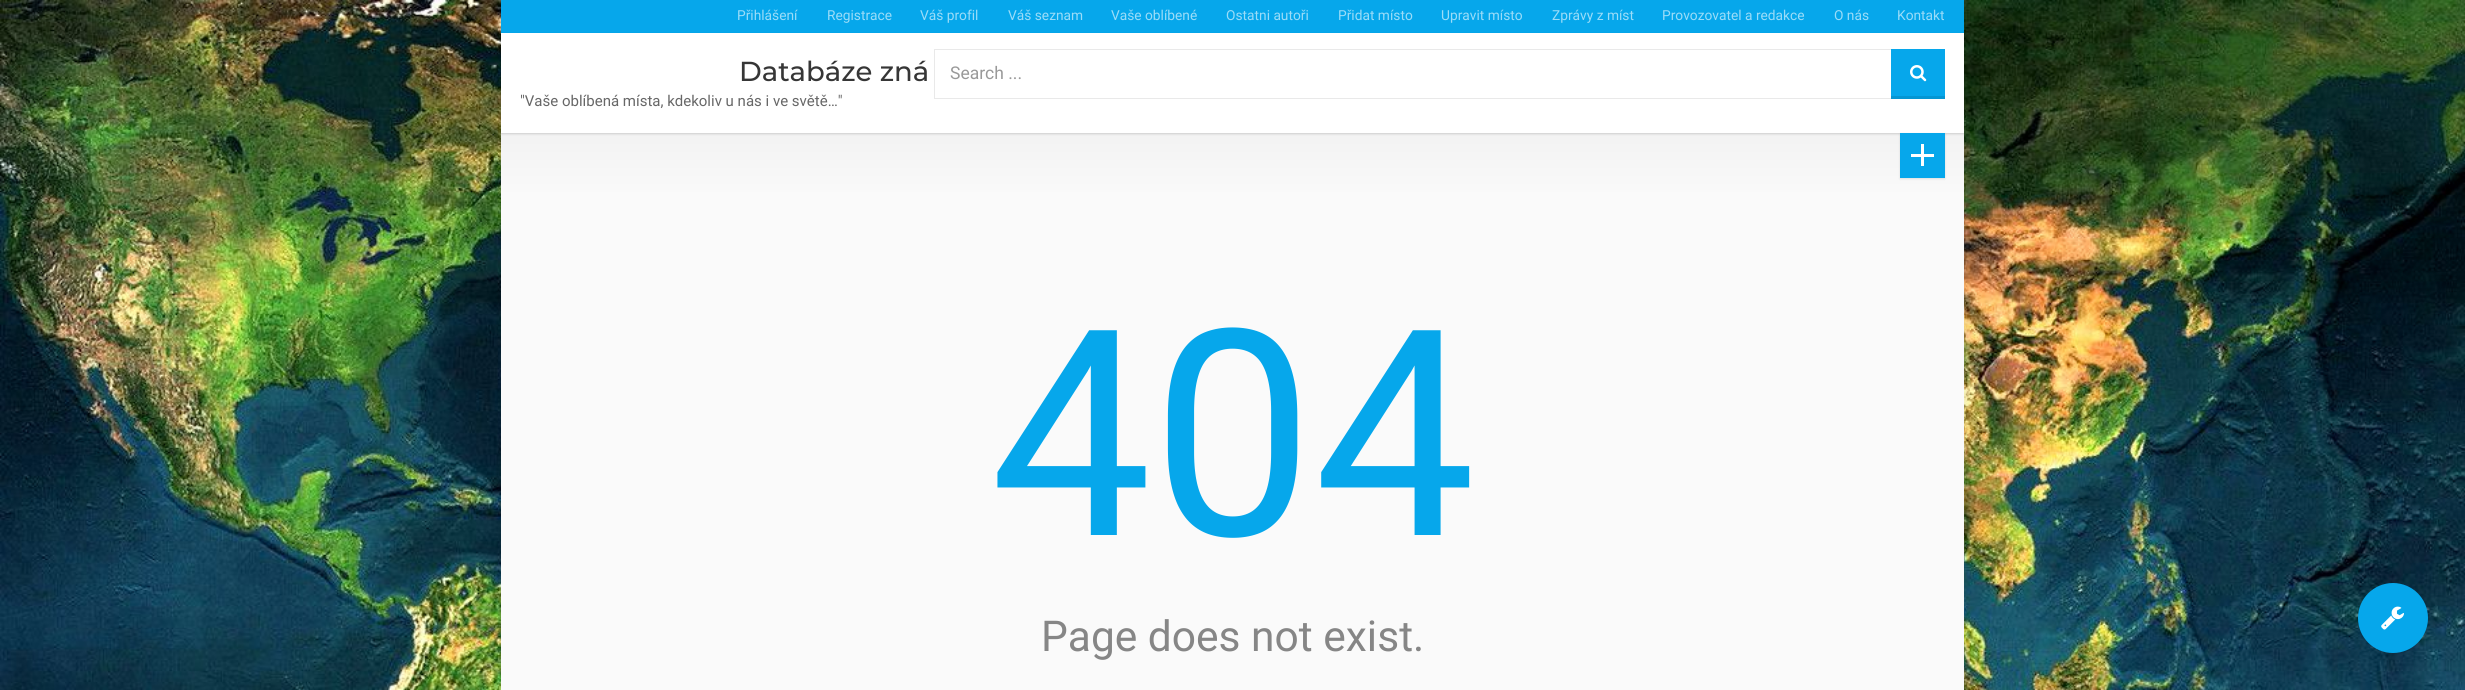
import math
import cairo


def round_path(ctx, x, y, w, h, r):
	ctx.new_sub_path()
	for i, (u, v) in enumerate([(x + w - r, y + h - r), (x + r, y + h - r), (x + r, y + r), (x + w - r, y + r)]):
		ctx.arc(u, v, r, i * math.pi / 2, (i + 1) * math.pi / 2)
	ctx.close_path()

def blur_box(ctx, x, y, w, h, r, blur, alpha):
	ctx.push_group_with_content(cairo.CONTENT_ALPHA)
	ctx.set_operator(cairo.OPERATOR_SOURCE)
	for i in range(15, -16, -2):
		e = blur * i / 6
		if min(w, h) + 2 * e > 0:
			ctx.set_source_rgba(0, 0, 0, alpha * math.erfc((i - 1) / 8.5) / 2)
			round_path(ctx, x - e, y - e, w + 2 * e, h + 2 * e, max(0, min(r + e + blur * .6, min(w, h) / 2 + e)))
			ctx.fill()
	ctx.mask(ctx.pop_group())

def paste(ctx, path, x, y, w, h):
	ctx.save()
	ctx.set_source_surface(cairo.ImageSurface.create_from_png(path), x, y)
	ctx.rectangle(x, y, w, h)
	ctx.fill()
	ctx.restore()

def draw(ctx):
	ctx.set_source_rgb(1, 1, 1)
	ctx.paint()
	paste(ctx, 'media/1.png', 0, 0, 2465, 690)
	ctx.set_source_rgb(0, 0, 0)
	blur_box(ctx, 501, 0, 1463, 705, 0, 5, 0.08)
	ctx.set_source_rgb(0.024, 0.655, 0.918)
	ctx.rectangle(501, 0, 1463, 33)
	ctx.fill()
	ctx.select_font_face('Roboto')
	ctx.set_font_size(13.75)
	ctx.set_source_rgb(0.608, 0.863, 0.969)
	for x, y, s in [
		(737, 20, 'Přihlášení'),
		(827, 20, 'Registrace'),
		(920, 20, 'Váš profil'),
		(1008, 20, 'Váš seznam'),
		(1111, 20, 'Vaše oblíbené'),
		(1226, 20, 'Ostatni autoři'),
		(1338, 20, 'Přidat místo'),
		(1441, 20, 'Upravit místo'),
		(1552, 20, 'Zprávy z míst'),
		(1662, 20, 'Provozovatel a redakce'),
		(1834, 20, 'O nás'),
		(1897, 20, 'Kontakt'),
	]:
		ctx.move_to(x, y)
		ctx.show_text(s)
	gradient = cairo.LinearGradient(1233, 132, 1233, 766)
	gradient.add_color_stop_rgba(0, 0.949, 0.949, 0.949, 1)
	gradient.add_color_stop_rgba(0.1, 0.98, 0.98, 0.98, 1)
	ctx.set_source(gradient)
	ctx.rectangle(501, 133, 1463, 557)
	ctx.fill()
	ctx.set_source_rgb(0, 0, 0)
	blur_box(ctx, 501, 34, 1463, 100, 0, 1, 0.15)
	ctx.set_source_rgb(1, 1, 1)
	ctx.rectangle(501, 33, 1463, 100)
	ctx.fill()
	ctx.select_font_face('Montserrat Medium')
	ctx.set_font_size(27.5)
	ctx.set_source_rgb(0.212, 0.212, 0.212)
	ctx.move_to(739, 81)
	ctx.show_text('Databáze zná')
	ctx.select_font_face('Roboto')
	ctx.set_font_size(15)
	ctx.set_source_rgb(0.404, 0.404, 0.404)
	ctx.move_to(520, 106)
	ctx.show_text('"Vaše oblíbená místa, kdekoliv u nás i ve světě…"')
	ctx.set_source_rgb(0.914, 0.914, 0.914)
	ctx.rectangle(934, 49, 959, 1)
	ctx.rectangle(934, 98, 959, 1)
	ctx.rectangle(934, 49, 1, 50)
	ctx.fill()
	ctx.set_font_size(17.5)
	ctx.set_source_rgb(0.6, 0.6, 0.6)
	ctx.move_to(950, 79)
	ctx.show_text('Search ...')
	ctx.set_source_rgb(0.024, 0.655, 0.918)
	ctx.rectangle(1891, 49, 54, 47)
	ctx.fill()
	paste(ctx, 'media/2.png', 1910, 65, 17, 17)
	ctx.set_source_rgb(0.02, 0.588, 0.827)
	ctx.rectangle(1891, 96, 54, 3)
	ctx.fill()
	ctx.set_source_rgb(0, 0, 0)
	blur_box(ctx, 1900, 134, 45, 45, 0, 1, 0.1)
	ctx.set_source_rgb(0.024, 0.655, 0.918)
	ctx.rectangle(1900, 133, 45, 45)
	ctx.fill()
	ctx.set_source_rgb(1, 1, 1)
	ctx.rectangle(1921, 144, 3, 22)
	ctx.rectangle(1911, 154, 23, 3)
	ctx.fill()
	ctx.set_font_size(288)
	ctx.set_source_rgb(0.024, 0.655, 0.918)
	ctx.move_to(990, 535)
	ctx.show_text('404')
	ctx.set_font_size(42.5)
	ctx.set_source_rgb(0.525, 0.525, 0.525)
	ctx.move_to(1041, 651)
	ctx.show_text('Page does not exist.')
	ctx.set_source_rgb(0, 0, 0)
	blur_box(ctx, 2358, 584, 70, 70, 35, 1, 0.1)
	ctx.set_source_rgb(0.024, 0.655, 0.918)
	ctx.arc(2393, 618, 35, 0, 2 * math.pi)
	ctx.fill()
	paste(ctx, 'media/3.png', 2381, 606, 23, 24)


surface = cairo.ImageSurface(cairo.FORMAT_RGB24, 2465, 690)
ctx = cairo.Context(surface)
options = cairo.FontOptions()
options.set_hint_metrics(cairo.HINT_METRICS_OFF)
options.set_hint_style(cairo.HINT_STYLE_NONE)
ctx.set_font_options(options)
ctx.set_miter_limit(4)
draw(ctx)
surface.write_to_png('image.png')
